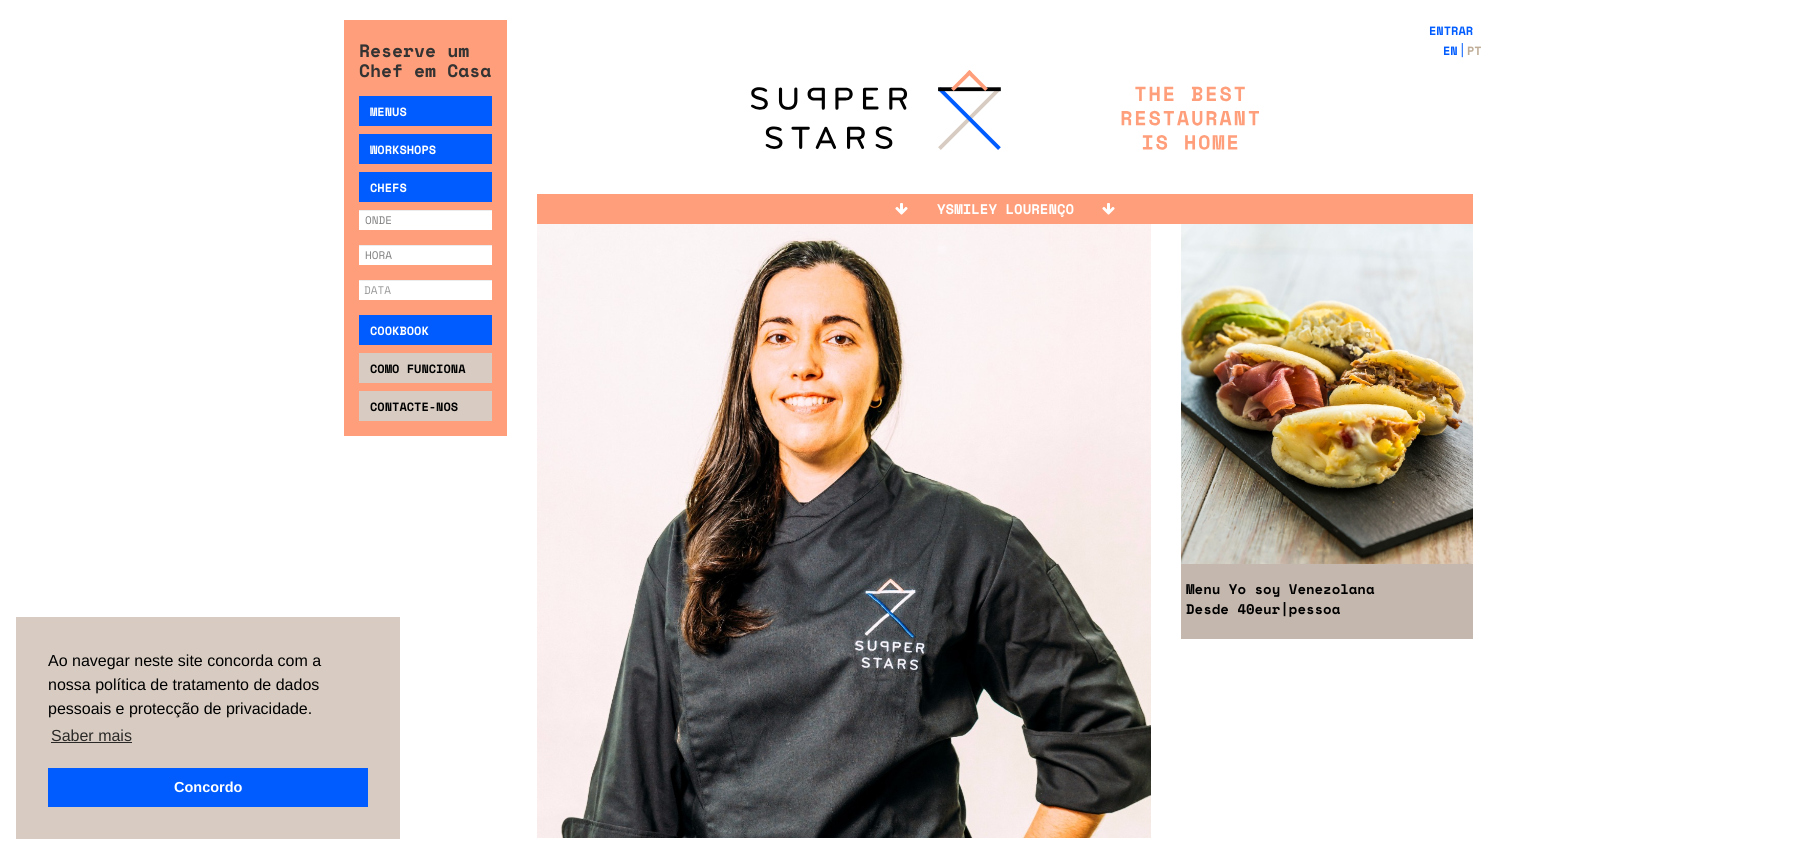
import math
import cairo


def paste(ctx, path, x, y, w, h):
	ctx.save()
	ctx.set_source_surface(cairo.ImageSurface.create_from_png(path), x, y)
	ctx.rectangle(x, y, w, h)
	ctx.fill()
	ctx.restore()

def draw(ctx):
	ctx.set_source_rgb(1, 1, 1)
	ctx.paint()
	ctx.set_source_rgb(1, 0.62, 0.478)
	ctx.rectangle(344, 20, 163, 416)
	ctx.fill()
	ctx.select_font_face('Space Mono', cairo.FONT_SLANT_NORMAL, cairo.FONT_WEIGHT_BOLD)
	ctx.set_font_size(18)
	ctx.set_source_rgb(0.2, 0.2, 0.2)
	ctx.move_to(359, 57)
	ctx.show_text('Reserve um')
	ctx.move_to(359, 77)
	ctx.show_text('Chef em Casa')
	ctx.set_source_rgb(0, 0.361, 1)
	ctx.rectangle(359, 96, 133, 30)
	ctx.fill()
	ctx.set_font_size(12)
	ctx.set_source_rgb(1, 1, 1)
	ctx.move_to(370, 116)
	ctx.show_text('MENUS')
	ctx.set_source_rgb(0, 0.361, 1)
	ctx.rectangle(359, 134, 133, 30)
	ctx.fill()
	ctx.set_source_rgb(1, 1, 1)
	ctx.move_to(370, 154)
	ctx.show_text('WORKSHOPS')
	ctx.set_source_rgb(0, 0.361, 1)
	ctx.rectangle(359, 172, 133, 30)
	ctx.fill()
	ctx.set_source_rgb(1, 1, 1)
	ctx.move_to(370, 192)
	ctx.show_text('CHEFS')
	ctx.rectangle(359, 211, 133, 19)
	ctx.fill()
	ctx.set_source_rgb(0.925, 0.925, 0.925)
	ctx.rectangle(359, 210, 133, 1)
	ctx.fill()
	ctx.select_font_face('Space Mono')
	ctx.set_font_size(11)
	ctx.set_source_rgb(0.502, 0.502, 0.502)
	ctx.move_to(365, 224)
	ctx.show_text('ONDE')
	ctx.set_source_rgb(1, 1, 1)
	ctx.rectangle(359, 246, 133, 19)
	ctx.fill()
	ctx.set_source_rgb(0.925, 0.925, 0.925)
	ctx.rectangle(359, 245, 133, 1)
	ctx.fill()
	ctx.set_source_rgb(0.502, 0.502, 0.502)
	ctx.move_to(365, 259)
	ctx.show_text('HORA')
	ctx.set_source_rgb(1, 1, 1)
	ctx.rectangle(359, 281, 133, 19)
	ctx.fill()
	ctx.set_source_rgb(0.925, 0.925, 0.925)
	ctx.rectangle(359, 280, 133, 1)
	ctx.fill()
	ctx.set_source_rgb(0.6, 0.6, 0.6)
	ctx.move_to(364, 294)
	ctx.show_text('DATA')
	ctx.set_source_rgb(0, 0.361, 1)
	ctx.rectangle(359, 315, 133, 30)
	ctx.fill()
	ctx.select_font_face('Space Mono', cairo.FONT_SLANT_NORMAL, cairo.FONT_WEIGHT_BOLD)
	ctx.set_font_size(12)
	ctx.set_source_rgb(1, 1, 1)
	ctx.move_to(370, 335)
	ctx.show_text('COOKBOOK')
	ctx.set_source_rgb(0.847, 0.8, 0.761)
	ctx.rectangle(359, 353, 133, 30)
	ctx.fill()
	ctx.set_source_rgb(0, 0, 0)
	ctx.move_to(370, 373)
	ctx.show_text('COMO FUNCIONA')
	ctx.set_source_rgb(0.847, 0.8, 0.761)
	ctx.rectangle(359, 391, 133, 30)
	ctx.fill()
	ctx.set_source_rgb(0, 0, 0)
	ctx.move_to(370, 411)
	ctx.show_text('CONTACTE-NOS')
	ctx.set_source_rgb(0, 0.361, 1)
	ctx.move_to(1429, 35)
	ctx.show_text('ENTRAR')
	ctx.move_to(1443, 55)
	ctx.show_text('EN')
	ctx.select_font_face('Space Mono')
	ctx.set_font_size(14)
	ctx.move_to(1458, 55)
	ctx.show_text('|')
	ctx.select_font_face('Space Mono', cairo.FONT_SLANT_NORMAL, cairo.FONT_WEIGHT_BOLD)
	ctx.set_font_size(12)
	ctx.set_source_rgb(0.749, 0.678, 0.596)
	ctx.move_to(1467, 55)
	ctx.show_text('PT')
	paste(ctx, 'media/1.png', 751, 70, 508, 80)
	ctx.set_source_rgb(1, 0.62, 0.478)
	ctx.rectangle(537, 194, 936, 30)
	ctx.fill()
	paste(ctx, 'media/2.png', 895, 203, 13, 12)
	ctx.set_font_size(14)
	ctx.set_source_rgb(1, 1, 1)
	ctx.move_to(937, 214)
	ctx.show_text('YSMILEY LOURENÇO')
	paste(ctx, 'media/2.png', 1102, 203, 13, 12)
	paste(ctx, 'media/3.png', 537, 224, 614, 614)
	ctx.set_source_rgb(0.769, 0.718, 0.678)
	ctx.rectangle(1181, 564, 292, 75)
	ctx.fill()
	paste(ctx, 'media/4.png', 1181, 224, 292, 340)
	ctx.set_font_size(12)
	ctx.set_source_rgb(0.835, 0.714, 0.4)
	ctx.move_to(1364, 338)
	ctx.show_text('a')
	ctx.set_font_size(14)
	ctx.set_source_rgb(0, 0, 0)
	ctx.move_to(1186, 594)
	ctx.show_text('Menu Yo soy Venezolana')
	ctx.move_to(1186, 614)
	ctx.show_text('Desde 40eur|pessoa')
	ctx.set_source_rgb(0.847, 0.8, 0.761)
	ctx.rectangle(16, 617, 384, 222)
	ctx.fill()
	ctx.select_font_face('Liberation Sans')
	ctx.set_font_size(16)
	ctx.set_source_rgb(0, 0, 0)
	for x, y, s in [
		(48, 666, 'Ao navegar neste site concorda com a'),
		(48, 690, 'nossa política de tratamento de dados'),
		(48, 714, 'pessoais e protecção de privacidade.'),
	]:
		ctx.move_to(x, y)
		ctx.show_text(s)
	ctx.set_source_rgb(0.169, 0.161, 0.153)
	ctx.move_to(51, 741)
	ctx.show_text('Saber mais')
	ctx.rectangle(51, 742, 81, 1)
	ctx.fill()
	ctx.set_source_rgb(0, 0.361, 1)
	ctx.rectangle(48, 768, 320, 39)
	ctx.fill()
	ctx.select_font_face('Liberation Sans', cairo.FONT_SLANT_NORMAL, cairo.FONT_WEIGHT_BOLD)
	ctx.set_font_size(14.5)
	ctx.set_source_rgb(1, 1, 1)
	ctx.move_to(174, 792)
	ctx.show_text('Concordo')


surface = cairo.ImageSurface(cairo.FORMAT_RGB24, 1817, 855)
ctx = cairo.Context(surface)
options = cairo.FontOptions()
options.set_hint_metrics(cairo.HINT_METRICS_OFF)
options.set_hint_style(cairo.HINT_STYLE_NONE)
ctx.set_font_options(options)
ctx.set_miter_limit(4)
draw(ctx)
surface.write_to_png('image.png')
